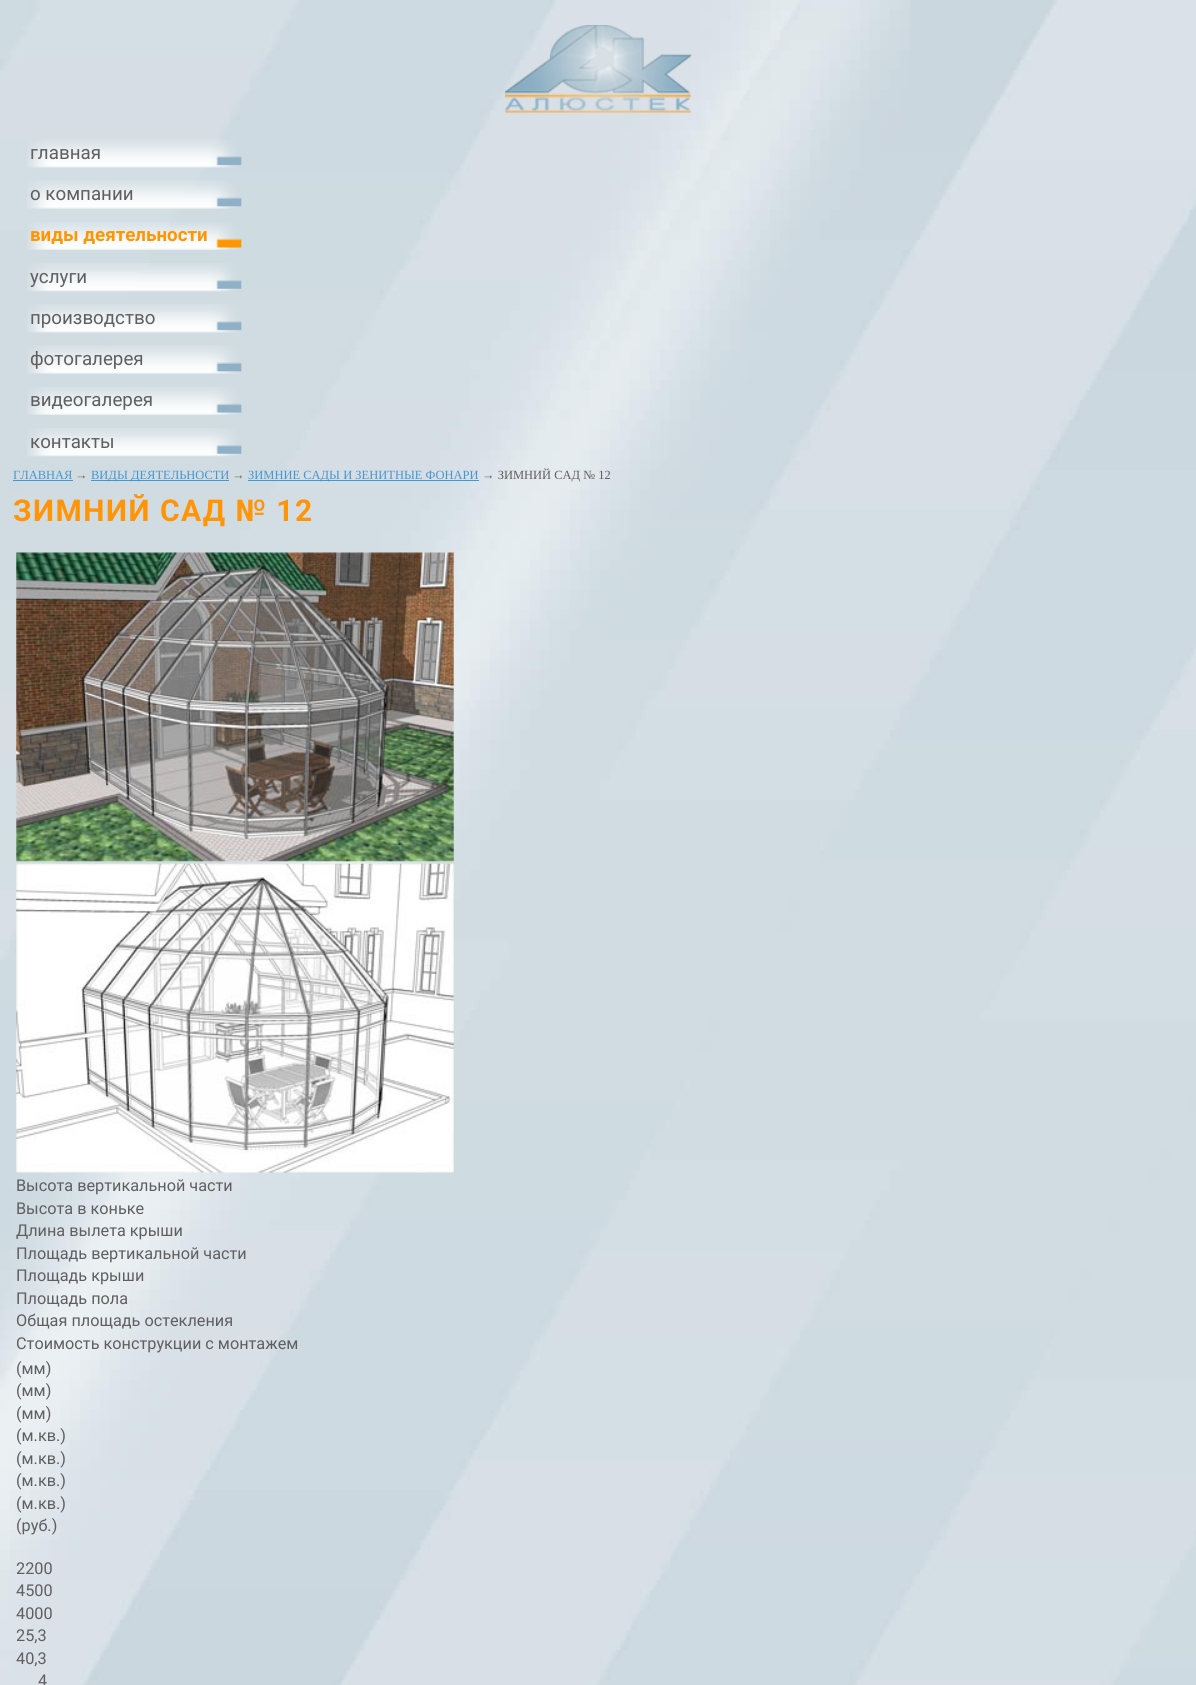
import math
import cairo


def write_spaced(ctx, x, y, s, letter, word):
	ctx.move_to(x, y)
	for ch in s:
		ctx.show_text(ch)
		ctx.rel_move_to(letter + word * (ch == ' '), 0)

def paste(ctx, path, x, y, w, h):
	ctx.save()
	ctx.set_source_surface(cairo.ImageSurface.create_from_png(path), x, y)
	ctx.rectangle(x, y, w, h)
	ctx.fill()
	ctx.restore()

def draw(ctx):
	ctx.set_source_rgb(1, 1, 1)
	ctx.paint()
	paste(ctx, 'media/1.png', 0, 0, 1196, 1685)
	paste(ctx, 'media/2.png', 505, 25, 187, 88)
	paste(ctx, 'media/3.png', 27, 139, 215, 29)
	ctx.select_font_face('Roboto')
	ctx.set_font_size(18.75)
	ctx.set_source_rgb(0.373, 0.373, 0.373)
	ctx.move_to(30, 159)
	ctx.show_text('главная')
	paste(ctx, 'media/4.png', 27, 180, 215, 29)
	ctx.move_to(30, 200)
	ctx.show_text('о компании')
	paste(ctx, 'media/5.png', 27, 222, 215, 28)
	ctx.select_font_face('Roboto', cairo.FONT_SLANT_NORMAL, cairo.FONT_WEIGHT_BOLD)
	ctx.set_source_rgb(1, 0.588, 0)
	ctx.move_to(30, 241)
	ctx.show_text('виды деятельности')
	paste(ctx, 'media/6.png', 27, 263, 215, 29)
	ctx.select_font_face('Roboto')
	ctx.set_source_rgb(0.373, 0.373, 0.373)
	ctx.move_to(30, 283)
	ctx.show_text('услуги')
	paste(ctx, 'media/7.png', 27, 304, 215, 29)
	ctx.move_to(30, 324)
	ctx.show_text('производство')
	paste(ctx, 'media/8.png', 27, 345, 215, 29)
	ctx.move_to(30, 365)
	ctx.show_text('фотогалерея')
	paste(ctx, 'media/9.png', 27, 387, 215, 28)
	ctx.move_to(30, 406)
	ctx.show_text('видеогалерея')
	paste(ctx, 'media/10.png', 27, 428, 215, 29)
	ctx.move_to(30, 448)
	ctx.show_text('контакты')
	ctx.select_font_face('Liberation Serif')
	ctx.set_font_size(12.5)
	ctx.set_source_rgb(0.271, 0.592, 0.808)
	ctx.move_to(13, 479)
	ctx.show_text('ГЛАВНАЯ')
	ctx.rectangle(13, 480, 60, 1)
	ctx.fill()
	ctx.set_source_rgb(0.373, 0.373, 0.373)
	ctx.move_to(75, 479)
	ctx.show_text('→')
	ctx.set_source_rgb(0.271, 0.592, 0.808)
	ctx.rectangle(91, 480, 138, 1)
	ctx.fill()
	ctx.move_to(91, 479)
	ctx.show_text('ВИДЫ ДЕЯТЕЛЬНОСТИ')
	ctx.set_source_rgb(0.373, 0.373, 0.373)
	ctx.move_to(232, 479)
	ctx.show_text('→')
	ctx.set_source_rgb(0.271, 0.592, 0.808)
	ctx.rectangle(248, 480, 231, 1)
	ctx.fill()
	ctx.move_to(248, 479)
	ctx.show_text('ЗИМНИЕ САДЫ И ЗЕНИТНЫЕ ФОНАРИ')
	ctx.set_source_rgb(0.373, 0.373, 0.373)
	ctx.move_to(482, 479)
	ctx.show_text('→ ЗИМНИЙ САД № 12')
	ctx.select_font_face('Roboto', cairo.FONT_SLANT_NORMAL, cairo.FONT_WEIGHT_BOLD)
	ctx.set_font_size(30)
	ctx.set_source_rgb(1, 0.58, 0.024)
	write_spaced(ctx, 13, 521, 'ЗИМНИЙ САД № 12', 1.5, 0)
	paste(ctx, 'media/11.png', 16, 552, 438, 310)
	paste(ctx, 'media/12.png', 16, 863, 438, 310)
	ctx.select_font_face('Roboto')
	ctx.set_font_size(16.25)
	ctx.set_source_rgb(0.373, 0.373, 0.373)
	for x, y, s in [
		(16, 1191, 'Высота вертикальной части'),
		(16, 1214, 'Высота в коньке'),
		(16, 1236, 'Длина вылета крыши'),
		(16, 1259, 'Площадь вертикальной части'),
		(16, 1281, 'Площадь крыши'),
		(16, 1304, 'Площадь пола'),
		(16, 1326, 'Общая площадь остекления'),
		(16, 1349, 'Стоимость конструкции с монтажем'),
		(16, 1374, '(мм)'),
		(16, 1396, '(мм)'),
		(16, 1419, '(мм)'),
		(16, 1441, '(м.кв.)'),
		(16, 1464, '(м.кв.)'),
		(16, 1486, '(м.кв.)'),
		(16, 1509, '(м.кв.)'),
		(16, 1531, '(руб.)'),
		(16, 1574, '2200'),
		(16, 1596, '4500'),
		(16, 1619, '4000'),
		(16, 1641, '25,3'),
		(16, 1664, '40,3'),
		(38, 1686, '4'),
	]:
		ctx.move_to(x, y)
		ctx.show_text(s)


surface = cairo.ImageSurface(cairo.FORMAT_RGB24, 1196, 1685)
ctx = cairo.Context(surface)
options = cairo.FontOptions()
options.set_hint_metrics(cairo.HINT_METRICS_OFF)
options.set_hint_style(cairo.HINT_STYLE_NONE)
ctx.set_font_options(options)
ctx.set_miter_limit(4)
draw(ctx)
surface.write_to_png('image.png')
